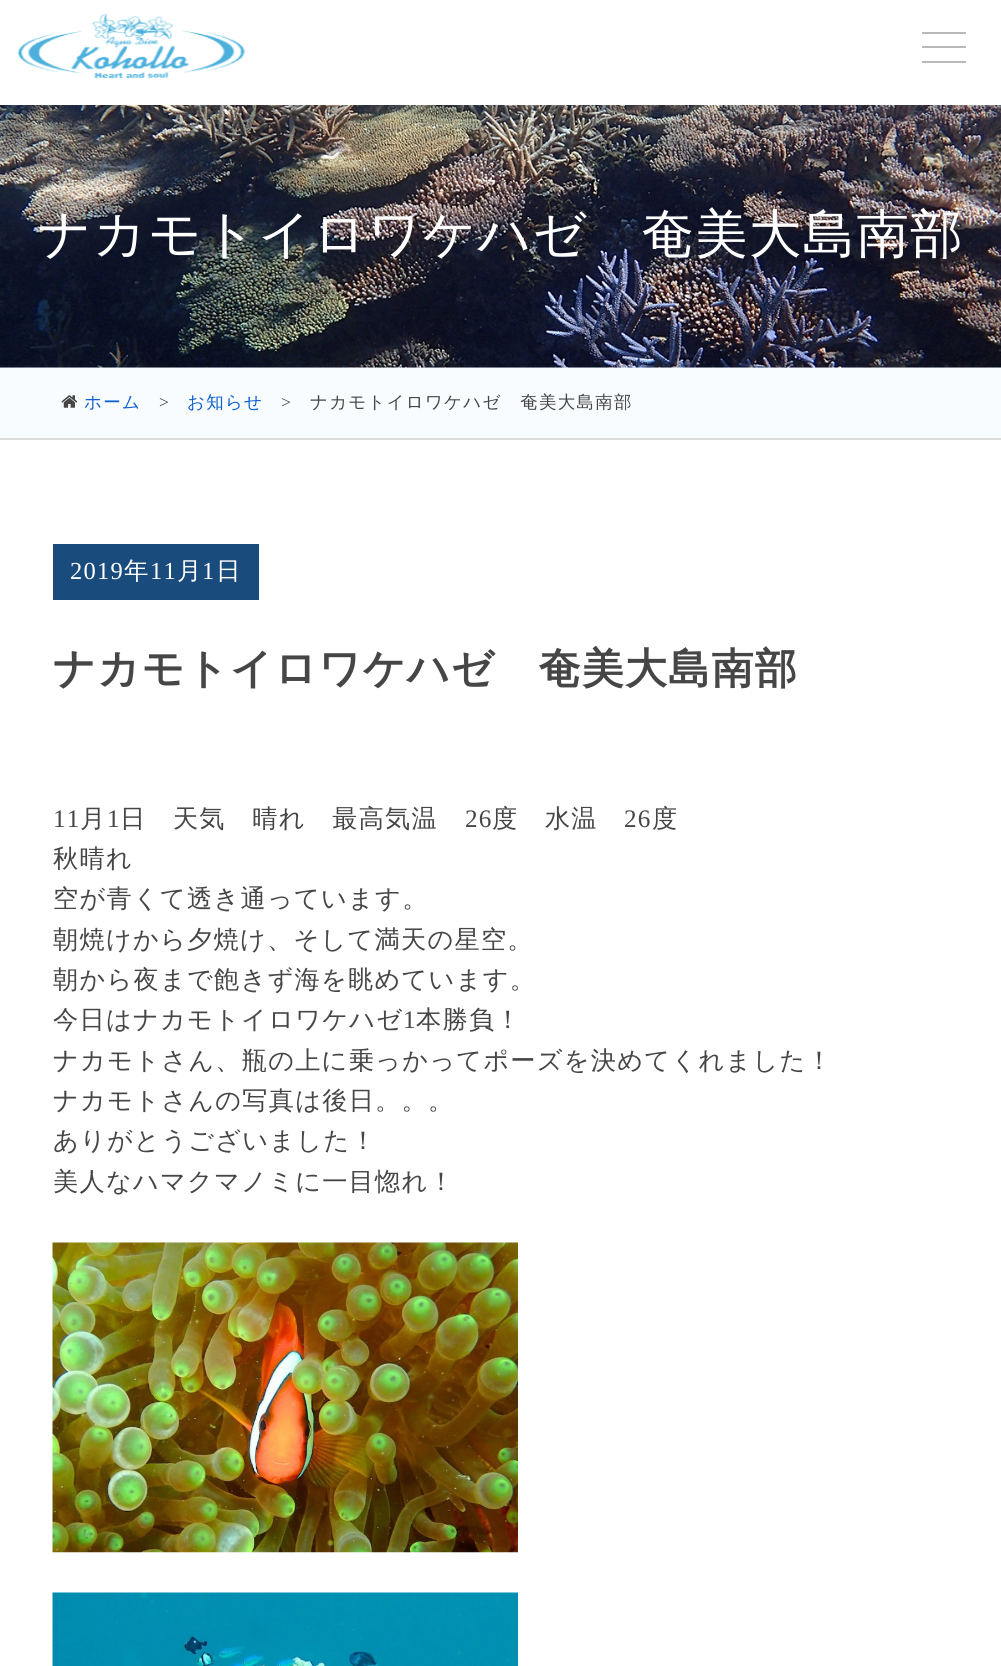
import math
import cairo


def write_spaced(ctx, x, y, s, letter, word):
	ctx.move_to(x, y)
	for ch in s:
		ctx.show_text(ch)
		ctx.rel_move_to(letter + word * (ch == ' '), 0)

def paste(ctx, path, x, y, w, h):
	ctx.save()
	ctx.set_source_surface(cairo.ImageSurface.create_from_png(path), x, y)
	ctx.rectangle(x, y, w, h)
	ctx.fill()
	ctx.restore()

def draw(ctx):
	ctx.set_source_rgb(1, 1, 1)
	ctx.paint()
	paste(ctx, 'media/1.png', 17, 14, 229, 65)
	ctx.set_source_rgb(0.725, 0.725, 0.725)
	ctx.rectangle(922, 32, 44, 2)
	ctx.rectangle(922, 46, 44, 2)
	ctx.rectangle(922, 61, 44, 2)
	ctx.fill()
	ctx.set_source_rgb(0.906, 0.941, 0.969)
	ctx.rectangle(0, 367, 1001, 1)
	ctx.fill()
	paste(ctx, 'media/2.png', 0, 105, 1001, 263)
	ctx.select_font_face('WenQuanYi Zen Hei Medium')
	ctx.set_font_size(52.5)
	ctx.set_source_rgb(1, 1, 1)
	write_spaced(ctx, 38, 252, 'ナカモトイロワケハゼ　奄美大島南部', 1.25, 0)
	ctx.set_source_rgb(0.973, 0.988, 1)
	ctx.rectangle(0, 368, 1001, 70)
	ctx.fill()
	ctx.set_source_rgb(0.867, 0.867, 0.867)
	ctx.rectangle(0, 438, 1001, 2)
	ctx.fill()
	paste(ctx, 'media/3.png', 61, 395, 17, 13)
	ctx.set_font_size(17.5)
	ctx.set_source_rgb(0.047, 0.376, 0.816)
	write_spaced(ctx, 84, 408, 'ホーム', 1.25, 0)
	ctx.select_font_face('Liberation Serif')
	ctx.set_source_rgb(0.275, 0.275, 0.275)
	write_spaced(ctx, 159, 408, '>', 1.25, 0)
	ctx.select_font_face('WenQuanYi Zen Hei Medium')
	ctx.set_source_rgb(0.047, 0.376, 0.816)
	write_spaced(ctx, 187, 408, 'お知らせ', 1.25, 0)
	ctx.select_font_face('Liberation Serif')
	ctx.set_source_rgb(0.275, 0.275, 0.275)
	write_spaced(ctx, 281, 408, '>', 1.25, 0)
	ctx.select_font_face('WenQuanYi Zen Hei Medium')
	write_spaced(ctx, 310, 408, 'ナカモトイロワケハゼ　奄美大島南部', 1.25, 0)
	ctx.set_source_rgb(0.102, 0.294, 0.49)
	ctx.rectangle(53, 544, 206, 56)
	ctx.fill()
	ctx.select_font_face('Liberation Serif')
	ctx.set_font_size(24.5)
	ctx.set_source_rgb(1, 1, 1)
	write_spaced(ctx, 70, 579, '2019', 1.25, 0)
	ctx.select_font_face('WenQuanYi Zen Hei Medium')
	write_spaced(ctx, 124, 579, '年', 1.25, 0)
	ctx.select_font_face('Liberation Serif')
	write_spaced(ctx, 150, 579, '11', 1.25, 0)
	ctx.select_font_face('WenQuanYi Zen Hei Medium')
	write_spaced(ctx, 177, 579, '月', 1.25, 0)
	ctx.select_font_face('Liberation Serif')
	write_spaced(ctx, 202, 579, '1', 1.25, 0)
	ctx.select_font_face('WenQuanYi Zen Hei Medium')
	write_spaced(ctx, 216, 579, '日', 1.25, 0)
	ctx.select_font_face('WenQuanYi Zen Hei', cairo.FONT_SLANT_NORMAL, cairo.FONT_WEIGHT_BOLD)
	ctx.set_font_size(42)
	ctx.set_source_rgb(0.275, 0.275, 0.275)
	write_spaced(ctx, 53, 683, 'ナカモトイロワケハゼ　奄美大島南部', 1.25, 0)
	ctx.select_font_face('Liberation Serif')
	ctx.set_font_size(25.2)
	write_spaced(ctx, 53, 827, '11', 1.25, 0)
	ctx.select_font_face('WenQuanYi Zen Hei Medium')
	write_spaced(ctx, 80, 827, '月', 1.25, 0)
	ctx.select_font_face('Liberation Serif')
	write_spaced(ctx, 107, 827, '1', 1.25, 0)
	ctx.select_font_face('WenQuanYi Zen Hei Medium')
	write_spaced(ctx, 120, 827, '日　天気　晴れ　最高気温', 1.25, 0)
	ctx.select_font_face('Liberation Serif')
	write_spaced(ctx, 465, 827, '26', 1.25, 0)
	ctx.select_font_face('WenQuanYi Zen Hei Medium')
	write_spaced(ctx, 492, 827, '度　水温', 1.25, 0)
	ctx.select_font_face('Liberation Serif')
	write_spaced(ctx, 624, 827, '26', 1.25, 0)
	ctx.select_font_face('WenQuanYi Zen Hei Medium')
	for x, y, s in [
		(652, 827, '度'),
		(53, 867, '秋晴れ'),
		(53, 907, '空が青くて透き通っています。'),
		(53, 948, '朝焼けから夕焼け、そして満天の星空。'),
		(53, 988, '朝から夜まで飽きず海を眺めています。'),
		(53, 1028, '今日はナカモトイロワケハゼ'),
	]:
		write_spaced(ctx, x, y, s, 1.25, 0)
	ctx.select_font_face('Liberation Serif')
	write_spaced(ctx, 403, 1028, '1', 1.25, 0)
	ctx.select_font_face('WenQuanYi Zen Hei Medium')
	for x, y, s in [
		(416, 1028, '本勝負！'),
		(53, 1069, 'ナカモトさん、瓶の上に乗っかってポーズを決めてくれました！'),
		(53, 1109, 'ナカモトさんの写真は後日。。。'),
		(53, 1149, 'ありがとうございました！'),
		(53, 1190, '美人なハマクマノミに一目惚れ！'),
	]:
		write_spaced(ctx, x, y, s, 1.25, 0)
	paste(ctx, 'media/4.png', 52, 1242, 466, 311)
	paste(ctx, 'media/5.png', 52, 1592, 466, 74)


surface = cairo.ImageSurface(cairo.FORMAT_RGB24, 1001, 1666)
ctx = cairo.Context(surface)
options = cairo.FontOptions()
options.set_hint_metrics(cairo.HINT_METRICS_OFF)
options.set_hint_style(cairo.HINT_STYLE_NONE)
ctx.set_font_options(options)
ctx.set_miter_limit(4)
draw(ctx)
surface.write_to_png('image.png')
